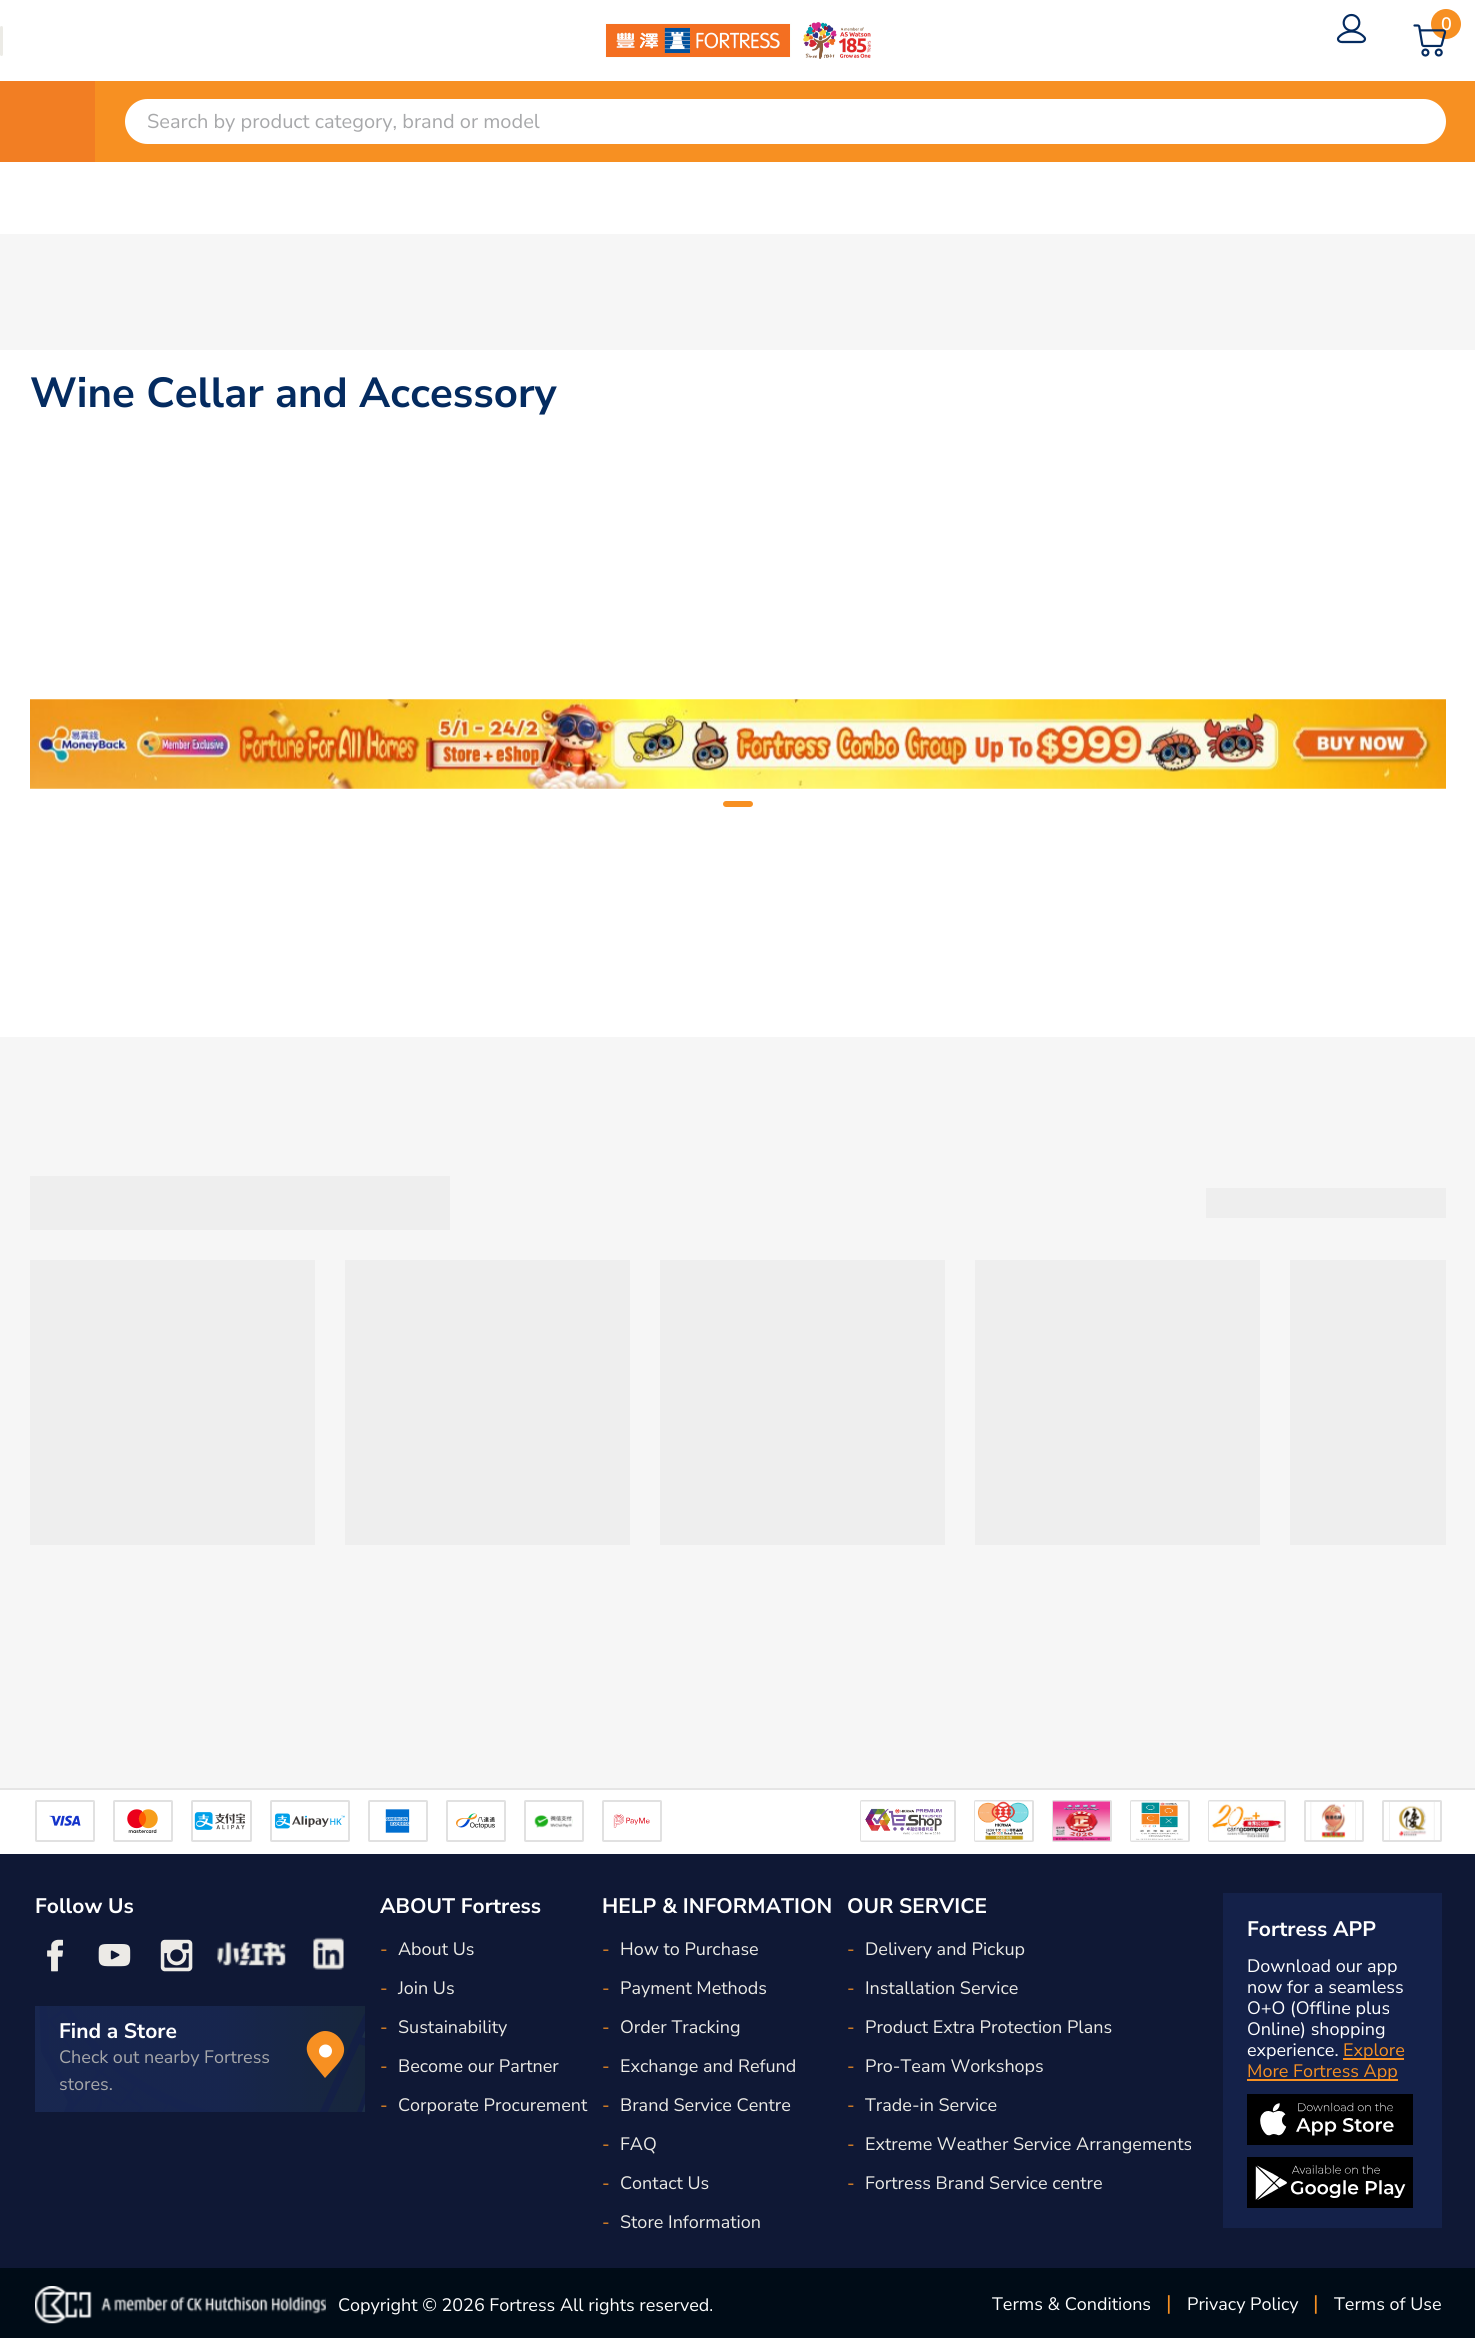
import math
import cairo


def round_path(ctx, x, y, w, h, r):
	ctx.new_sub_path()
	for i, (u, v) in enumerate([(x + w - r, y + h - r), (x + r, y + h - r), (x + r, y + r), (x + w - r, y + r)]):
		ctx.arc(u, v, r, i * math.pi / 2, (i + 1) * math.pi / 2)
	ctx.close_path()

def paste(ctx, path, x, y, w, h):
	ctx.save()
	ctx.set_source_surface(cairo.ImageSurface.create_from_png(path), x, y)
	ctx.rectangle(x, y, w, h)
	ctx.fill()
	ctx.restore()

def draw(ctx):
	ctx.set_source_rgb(1, 1, 1)
	ctx.paint()
	ctx.set_source_rgb(0.925, 0.918, 0.902)
	round_path(ctx, 0, 26, 3, 30, 1.5)
	ctx.fill()
	paste(ctx, 'media/1.png', 605, 22, 266, 37)
	paste(ctx, 'media/2.png', 1336, 13, 31, 31)
	ctx.set_source_rgb(0.965, 0.565, 0.133)
	ctx.arc(1446, 24, 15, 0, 2 * math.pi)
	ctx.fill()
	ctx.select_font_face('Nunito Sans SemiBold')
	ctx.set_font_size(18)
	ctx.set_source_rgb(1, 1, 1)
	ctx.move_to(1441, 30)
	ctx.show_text('0')
	paste(ctx, 'media/3.png', 1413, 24, 34, 33)
	ctx.set_source_rgb(0.965, 0.565, 0.133)
	ctx.rectangle(95, 81, 1380, 81)
	ctx.fill()
	ctx.set_source_rgb(0.949, 0.494, 0.137)
	ctx.rectangle(0, 81, 95, 81)
	ctx.fill()
	ctx.set_source_rgb(1, 1, 1)
	round_path(ctx, 123.5, 97.5, 1324, 48, 24)
	ctx.fill_preserve()
	ctx.set_source_rgb(0.965, 0.565, 0.133)
	ctx.set_line_width(3)
	ctx.stroke()
	ctx.select_font_face('Nunito Sans')
	ctx.set_font_size(20)
	ctx.set_source_rgb(0.655, 0.659, 0.667)
	ctx.move_to(147, 128)
	ctx.show_text('Search by product category, brand or model')
	ctx.set_source_rgb(0.961, 0.961, 0.961)
	ctx.rectangle(0, 234, 1475, 1554)
	ctx.fill()
	ctx.set_source_rgb(1, 1, 1)
	ctx.rectangle(0, 350, 1475, 687)
	ctx.fill()
	ctx.select_font_face('Nunito Sans', cairo.FONT_SLANT_NORMAL, cairo.FONT_WEIGHT_BOLD)
	ctx.set_font_size(42)
	ctx.set_source_rgb(0.016, 0.169, 0.376)
	ctx.move_to(30, 407)
	ctx.show_text('Wine Cellar and Accessory')
	paste(ctx, 'media/4.png', 30, 699, 1416, 90)
	ctx.set_source_rgb(0.965, 0.565, 0.133)
	round_path(ctx, 723, 801, 30, 6, 3)
	ctx.fill()
	ctx.set_source_rgb(0.933, 0.933, 0.933)
	ctx.rectangle(30, 1176, 420, 54)
	ctx.rectangle(1206, 1188, 240, 30)
	ctx.rectangle(30, 1260, 285, 285)
	ctx.rectangle(345, 1260, 285, 285)
	ctx.rectangle(660, 1260, 285, 285)
	ctx.rectangle(975, 1260, 285, 285)
	ctx.rectangle(1290, 1260, 156, 285)
	ctx.fill()
	ctx.set_source_rgb(0.059, 0.094, 0.208)
	ctx.rectangle(0, 1854, 1475, 414)
	ctx.fill()
	ctx.set_source_rgb(0.898, 0.898, 0.898)
	ctx.rectangle(0, 1788, 1475, 2)
	ctx.fill()
	round_path(ctx, 36, 1801, 58, 40, 0.5)
	ctx.set_source_rgb(0.882, 0.882, 0.882)
	ctx.set_line_width(2)
	ctx.stroke()
	paste(ctx, 'media/5.png', 49, 1815, 32, 11)
	round_path(ctx, 114, 1801, 58, 40, 0.5)
	ctx.stroke()
	paste(ctx, 'media/6.png', 127, 1809, 31, 24)
	round_path(ctx, 192, 1801, 59, 40, 0.5)
	ctx.stroke()
	paste(ctx, 'media/7.png', 194, 1812, 52, 18)
	round_path(ctx, 271, 1801, 78, 40, 0.5)
	ctx.stroke()
	paste(ctx, 'media/8.png', 275, 1813, 70, 16)
	round_path(ctx, 369, 1801, 58, 40, 0.5)
	ctx.stroke()
	paste(ctx, 'media/9.png', 385, 1809, 25, 24)
	round_path(ctx, 447, 1801, 58, 40, 0.5)
	ctx.stroke()
	paste(ctx, 'media/10.png', 456, 1813, 39, 16)
	round_path(ctx, 525, 1801, 58, 40, 0.5)
	ctx.stroke()
	paste(ctx, 'media/11.png', 534, 1815, 39, 13)
	round_path(ctx, 603, 1801, 58, 40, 0.5)
	ctx.stroke()
	paste(ctx, 'media/12.png', 613, 1813, 37, 15)
	round_path(ctx, 861, 1801, 94, 40, 0.5)
	ctx.stroke()
	paste(ctx, 'media/13.png', 861, 1801, 93, 40)
	round_path(ctx, 975, 1801, 58, 40, 0.5)
	ctx.stroke()
	paste(ctx, 'media/14.png', 975, 1801, 57, 40)
	round_path(ctx, 1053, 1801, 58, 40, 0.5)
	ctx.stroke()
	paste(ctx, 'media/15.png', 1053, 1801, 57, 40)
	round_path(ctx, 1131, 1801, 58, 40, 0.5)
	ctx.stroke()
	paste(ctx, 'media/16.png', 1131, 1801, 57, 40)
	round_path(ctx, 1209, 1801, 76, 40, 0.5)
	ctx.stroke()
	paste(ctx, 'media/17.png', 1209, 1801, 75, 40)
	round_path(ctx, 1305, 1801, 58, 40, 0.5)
	ctx.stroke()
	paste(ctx, 'media/18.png', 1310, 1802, 46, 38)
	round_path(ctx, 1383, 1801, 58, 40, 0.5)
	ctx.stroke()
	paste(ctx, 'media/19.png', 1389, 1802, 46, 38)
	ctx.set_font_size(21)
	ctx.set_source_rgb(1, 1, 1)
	ctx.move_to(35, 1913)
	ctx.show_text('Follow Us')
	paste(ctx, 'media/20.png', 47, 1939, 16, 33)
	paste(ctx, 'media/21.png', 98, 1944, 33, 23)
	paste(ctx, 'media/22.png', 160, 1939, 33, 33)
	paste(ctx, 'media/23.png', 217, 1942, 69, 24)
	paste(ctx, 'media/24.png', 313, 1937, 31, 33)
	paste(ctx, 'media/25.png', 35, 2006, 330, 106)
	ctx.move_to(59, 2038)
	ctx.show_text('Find a Store')
	ctx.select_font_face('Nunito Sans')
	ctx.set_font_size(18)
	ctx.set_source_rgb(0.655, 0.659, 0.667)
	ctx.move_to(59, 2063)
	ctx.show_text('Check out nearby Fortress')
	ctx.move_to(59, 2090)
	ctx.show_text('stores.')
	ctx.set_source_rgb(0.965, 0.565, 0.133)
	ctx.new_path()
	ctx.move_to(325, 2031)
	ctx.curve_to(320, 2031, 315, 2034, 311, 2038)
	ctx.curve_to(302, 2049, 309, 2058, 316, 2067)
	ctx.line_to(325, 2078)
	ctx.line_to(335, 2067)
	ctx.curve_to(342, 2059, 348, 2051, 341, 2040)
	ctx.curve_to(337, 2034, 331, 2031, 325, 2031)
	ctx.close_path()
	ctx.fill()
	ctx.set_source_rgb(1, 1, 1)
	ctx.arc(325.5, 2051, 6.5, 0, 2 * math.pi)
	ctx.fill()
	ctx.select_font_face('Nunito Sans', cairo.FONT_SLANT_NORMAL, cairo.FONT_WEIGHT_BOLD)
	ctx.set_font_size(21)
	ctx.move_to(380, 1913)
	ctx.show_text('ABOUT Fortress')
	ctx.select_font_face('Nunito Sans')
	ctx.set_font_size(18)
	ctx.set_source_rgb(0.965, 0.565, 0.133)
	ctx.move_to(380, 1955)
	ctx.show_text('-')
	ctx.set_source_rgb(0.925, 0.918, 0.902)
	ctx.move_to(398, 1955)
	ctx.show_text('About Us')
	ctx.set_source_rgb(0.965, 0.565, 0.133)
	ctx.move_to(380, 1994)
	ctx.show_text('-')
	ctx.set_source_rgb(0.925, 0.918, 0.902)
	ctx.move_to(398, 1994)
	ctx.show_text('Join Us')
	ctx.set_source_rgb(0.965, 0.565, 0.133)
	ctx.move_to(380, 2033)
	ctx.show_text('-')
	ctx.set_source_rgb(0.925, 0.918, 0.902)
	ctx.move_to(398, 2033)
	ctx.show_text('Sustainability')
	ctx.set_source_rgb(0.965, 0.565, 0.133)
	ctx.move_to(380, 2072)
	ctx.show_text('-')
	ctx.set_source_rgb(0.925, 0.918, 0.902)
	ctx.move_to(398, 2072)
	ctx.show_text('Become our Partner')
	ctx.set_source_rgb(0.965, 0.565, 0.133)
	ctx.move_to(380, 2111)
	ctx.show_text('-')
	ctx.set_source_rgb(0.925, 0.918, 0.902)
	ctx.move_to(398, 2111)
	ctx.show_text('Corporate Procurement')
	ctx.select_font_face('Nunito Sans', cairo.FONT_SLANT_NORMAL, cairo.FONT_WEIGHT_BOLD)
	ctx.set_font_size(21)
	ctx.set_source_rgb(1, 1, 1)
	ctx.move_to(602, 1913)
	ctx.show_text('HELP & INFORMATION')
	ctx.select_font_face('Nunito Sans')
	ctx.set_font_size(18)
	ctx.set_source_rgb(0.965, 0.565, 0.133)
	ctx.move_to(602, 1955)
	ctx.show_text('-')
	ctx.set_source_rgb(0.925, 0.918, 0.902)
	ctx.move_to(620, 1955)
	ctx.show_text('How to Purchase')
	ctx.set_source_rgb(0.965, 0.565, 0.133)
	ctx.move_to(602, 1994)
	ctx.show_text('-')
	ctx.set_source_rgb(0.925, 0.918, 0.902)
	ctx.move_to(620, 1994)
	ctx.show_text('Payment Methods')
	ctx.set_source_rgb(0.965, 0.565, 0.133)
	ctx.move_to(602, 2033)
	ctx.show_text('-')
	ctx.set_source_rgb(0.925, 0.918, 0.902)
	ctx.move_to(620, 2033)
	ctx.show_text('Order Tracking')
	ctx.set_source_rgb(0.965, 0.565, 0.133)
	ctx.move_to(602, 2072)
	ctx.show_text('-')
	ctx.set_source_rgb(0.925, 0.918, 0.902)
	ctx.move_to(620, 2072)
	ctx.show_text('Exchange and Refund')
	ctx.set_source_rgb(0.965, 0.565, 0.133)
	ctx.move_to(602, 2111)
	ctx.show_text('-')
	ctx.set_source_rgb(0.925, 0.918, 0.902)
	ctx.move_to(620, 2111)
	ctx.show_text('Brand Service Centre')
	ctx.set_source_rgb(0.965, 0.565, 0.133)
	ctx.move_to(602, 2150)
	ctx.show_text('-')
	ctx.set_source_rgb(0.925, 0.918, 0.902)
	ctx.move_to(620, 2150)
	ctx.show_text('FAQ')
	ctx.set_source_rgb(0.965, 0.565, 0.133)
	ctx.move_to(602, 2189)
	ctx.show_text('-')
	ctx.set_source_rgb(0.925, 0.918, 0.902)
	ctx.move_to(620, 2189)
	ctx.show_text('Contact Us')
	ctx.set_source_rgb(0.965, 0.565, 0.133)
	ctx.move_to(602, 2228)
	ctx.show_text('-')
	ctx.set_source_rgb(0.925, 0.918, 0.902)
	ctx.move_to(620, 2228)
	ctx.show_text('Store Information')
	ctx.select_font_face('Nunito Sans', cairo.FONT_SLANT_NORMAL, cairo.FONT_WEIGHT_BOLD)
	ctx.set_font_size(21)
	ctx.set_source_rgb(1, 1, 1)
	ctx.move_to(847, 1913)
	ctx.show_text('OUR SERVICE')
	ctx.select_font_face('Nunito Sans')
	ctx.set_font_size(18)
	ctx.set_source_rgb(0.965, 0.565, 0.133)
	ctx.move_to(847, 1955)
	ctx.show_text('-')
	ctx.set_source_rgb(0.925, 0.918, 0.902)
	ctx.move_to(865, 1955)
	ctx.show_text('Delivery and Pickup')
	ctx.set_source_rgb(0.965, 0.565, 0.133)
	ctx.move_to(847, 1994)
	ctx.show_text('-')
	ctx.set_source_rgb(0.925, 0.918, 0.902)
	ctx.move_to(865, 1994)
	ctx.show_text('Installation Service')
	ctx.set_source_rgb(0.965, 0.565, 0.133)
	ctx.move_to(847, 2033)
	ctx.show_text('-')
	ctx.set_source_rgb(0.925, 0.918, 0.902)
	ctx.move_to(865, 2033)
	ctx.show_text('Product Extra Protection Plans')
	ctx.set_source_rgb(0.965, 0.565, 0.133)
	ctx.move_to(847, 2072)
	ctx.show_text('-')
	ctx.set_source_rgb(0.925, 0.918, 0.902)
	ctx.move_to(865, 2072)
	ctx.show_text('Pro-Team Workshops')
	ctx.set_source_rgb(0.965, 0.565, 0.133)
	ctx.move_to(847, 2111)
	ctx.show_text('-')
	ctx.set_source_rgb(0.925, 0.918, 0.902)
	ctx.move_to(865, 2111)
	ctx.show_text('Trade-in Service')
	ctx.set_source_rgb(0.965, 0.565, 0.133)
	ctx.move_to(847, 2150)
	ctx.show_text('-')
	ctx.set_source_rgb(0.925, 0.918, 0.902)
	ctx.move_to(865, 2150)
	ctx.show_text('Extreme Weather Service Arrangements')
	ctx.set_source_rgb(0.965, 0.565, 0.133)
	ctx.move_to(847, 2189)
	ctx.show_text('-')
	ctx.set_source_rgb(0.925, 0.918, 0.902)
	ctx.move_to(865, 2189)
	ctx.show_text('Fortress Brand Service centre')
	ctx.set_source_rgb(0.082, 0.129, 0.286)
	ctx.rectangle(1223, 1893, 219, 335)
	ctx.fill()
	ctx.select_font_face('Nunito Sans', cairo.FONT_SLANT_NORMAL, cairo.FONT_WEIGHT_BOLD)
	ctx.set_font_size(21)
	ctx.set_source_rgb(1, 1, 1)
	ctx.move_to(1247, 1936)
	ctx.show_text('Fortress APP')
	ctx.select_font_face('Nunito Sans')
	ctx.set_font_size(18)
	for x, y, s in [
		(1247, 1972, 'Download our app'),
		(1247, 1993, 'now for a seamless'),
		(1247, 2014, 'O+O (Offline plus'),
		(1247, 2035, 'Online) shopping'),
		(1247, 2056, 'experience.'),
	]:
		ctx.move_to(x, y)
		ctx.show_text(s)
	ctx.set_source_rgb(0.965, 0.565, 0.133)
	ctx.rectangle(1343, 2058, 61, 2)
	ctx.fill()
	ctx.move_to(1343, 2056)
	ctx.show_text('Explore')
	ctx.rectangle(1247, 2079, 151, 2)
	ctx.fill()
	ctx.move_to(1247, 2077)
	ctx.show_text('More Fortress App')
	paste(ctx, 'media/26.png', 1247, 2094, 166, 51)
	paste(ctx, 'media/27.png', 1247, 2157, 166, 51)
	ctx.set_source_rgb(0, 0.047, 0.09)
	ctx.rectangle(0, 2268, 1475, 70)
	ctx.fill()
	paste(ctx, 'media/28.png', 35, 2286, 291, 38)
	ctx.set_source_rgb(1, 1, 1)
	ctx.move_to(338, 2311)
	ctx.show_text('Copyright © 2026 Fortress All rights reserved.')
	ctx.move_to(992, 2310)
	ctx.show_text('Terms & Conditions')
	ctx.set_font_size(21)
	ctx.set_source_rgb(0.965, 0.565, 0.133)
	ctx.move_to(1166, 2310)
	ctx.show_text('|')
	ctx.set_font_size(18)
	ctx.set_source_rgb(1, 1, 1)
	ctx.move_to(1187, 2310)
	ctx.show_text('Privacy Policy')
	ctx.set_font_size(21)
	ctx.set_source_rgb(0.965, 0.565, 0.133)
	ctx.move_to(1313, 2310)
	ctx.show_text('|')
	ctx.set_font_size(18)
	ctx.set_source_rgb(1, 1, 1)
	ctx.move_to(1334, 2310)
	ctx.show_text('Terms of Use')


surface = cairo.ImageSurface(cairo.FORMAT_RGB24, 1475, 2338)
ctx = cairo.Context(surface)
options = cairo.FontOptions()
options.set_hint_metrics(cairo.HINT_METRICS_OFF)
options.set_hint_style(cairo.HINT_STYLE_NONE)
ctx.set_font_options(options)
ctx.set_miter_limit(4)
draw(ctx)
surface.write_to_png('image.png')
